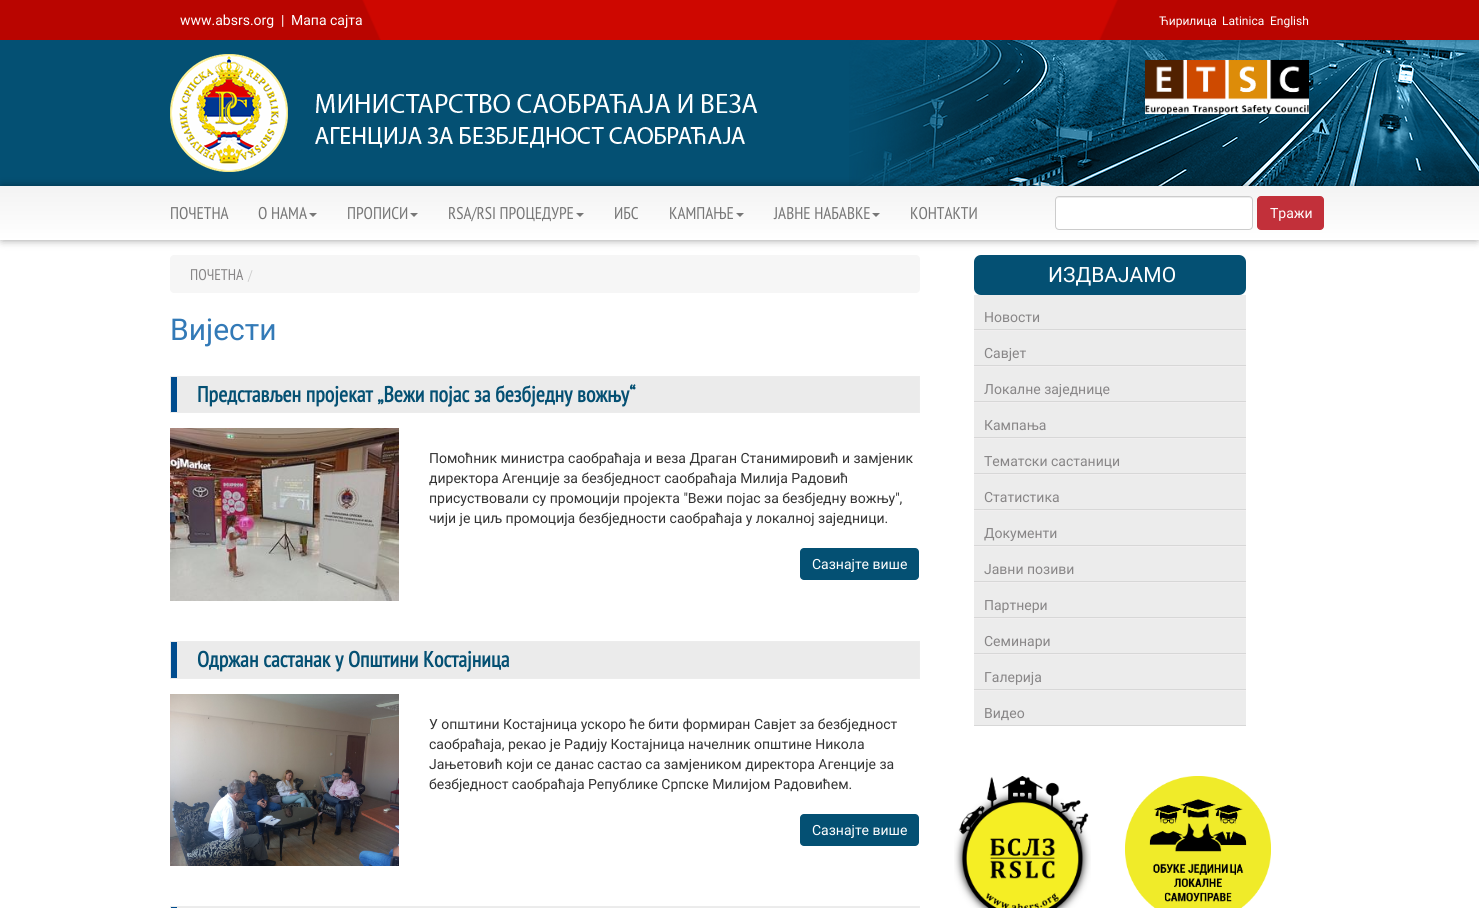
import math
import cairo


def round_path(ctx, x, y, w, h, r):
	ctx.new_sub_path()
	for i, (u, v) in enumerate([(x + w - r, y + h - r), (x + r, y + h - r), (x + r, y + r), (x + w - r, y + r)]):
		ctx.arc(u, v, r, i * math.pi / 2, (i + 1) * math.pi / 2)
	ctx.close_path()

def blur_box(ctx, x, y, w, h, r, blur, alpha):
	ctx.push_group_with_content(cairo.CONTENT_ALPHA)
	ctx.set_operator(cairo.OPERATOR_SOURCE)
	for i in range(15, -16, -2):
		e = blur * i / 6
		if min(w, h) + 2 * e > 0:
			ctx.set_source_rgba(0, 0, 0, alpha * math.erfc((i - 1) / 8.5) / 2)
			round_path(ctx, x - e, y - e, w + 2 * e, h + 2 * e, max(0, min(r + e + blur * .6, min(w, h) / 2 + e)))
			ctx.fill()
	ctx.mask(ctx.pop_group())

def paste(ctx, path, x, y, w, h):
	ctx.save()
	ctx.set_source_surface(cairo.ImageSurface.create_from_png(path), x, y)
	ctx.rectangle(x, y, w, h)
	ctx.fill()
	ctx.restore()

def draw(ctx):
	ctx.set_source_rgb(1, 1, 1)
	ctx.paint()
	paste(ctx, 'media/1.png', 0, 0, 1479, 40)
	ctx.select_font_face('Roboto')
	ctx.set_font_size(14)
	ctx.set_source_rgb(1, 1, 1)
	for x, y, s in [
		(180, 25, 'www.absrs.org'),
		(281, 25, '|'),
		(291, 25, 'Мапа сајта'),
	]:
		ctx.move_to(x, y)
		ctx.show_text(s)
	ctx.set_font_size(12)
	for x, y, s in [
		(1159, 25, 'Ћирилица'),
		(1222, 25, 'Latinica'),
		(1270, 25, 'English'),
	]:
		ctx.move_to(x, y)
		ctx.show_text(s)
	ctx.set_source_rgb(0.016, 0.314, 0.451)
	ctx.rectangle(0, 40, 1479, 146)
	ctx.fill()
	paste(ctx, 'media/2.png', 849, 40, 630, 146)
	paste(ctx, 'media/3.png', 170, 54, 588, 118)
	paste(ctx, 'media/4.png', 1145, 60, 164, 54)
	ctx.set_source_rgb(0, 0, 0)
	blur_box(ctx, 2, 188, 1475, 50, 0, 5, 0.6)
	gradient = cairo.LinearGradient(740, 186, 740, 240)
	gradient.add_color_stop_rgba(0, 0.953, 0.953, 0.953, 1)
	gradient.add_color_stop_rgba(1, 1, 1, 1, 1)
	ctx.set_source(gradient)
	ctx.rectangle(0, 186, 1479, 54)
	ctx.fill()
	ctx.select_font_face('PT Sans Narrow')
	ctx.set_font_size(17)
	ctx.set_source_rgb(0.467, 0.467, 0.467)
	ctx.move_to(170, 219)
	ctx.show_text('ПОЧЕТНА')
	ctx.move_to(258, 219)
	ctx.show_text('О НАМА')
	ctx.new_path()
	ctx.move_to(309, 213)
	ctx.line_to(317, 213)
	ctx.line_to(313, 217)
	ctx.close_path()
	ctx.fill()
	ctx.move_to(347, 219)
	ctx.show_text('ПРОПИСИ')
	ctx.new_path()
	ctx.move_to(410, 213)
	ctx.line_to(418, 213)
	ctx.line_to(414, 217)
	ctx.close_path()
	ctx.fill()
	ctx.move_to(448, 219)
	ctx.show_text('RSA/RSI ПРОЦЕДУРЕ')
	ctx.new_path()
	ctx.move_to(576, 213)
	ctx.line_to(584, 213)
	ctx.line_to(580, 217)
	ctx.close_path()
	ctx.fill()
	ctx.move_to(614, 219)
	ctx.show_text('ИБС')
	ctx.move_to(669, 219)
	ctx.show_text('KАМПАЊЕ')
	ctx.new_path()
	ctx.move_to(736, 213)
	ctx.line_to(744, 213)
	ctx.line_to(740, 217)
	ctx.close_path()
	ctx.fill()
	ctx.move_to(774, 219)
	ctx.show_text('ЈАВНЕ НАБАВКЕ')
	ctx.new_path()
	ctx.move_to(872, 213)
	ctx.line_to(880, 213)
	ctx.line_to(876, 217)
	ctx.close_path()
	ctx.fill()
	ctx.move_to(910, 219)
	ctx.show_text('КОНТАКТИ')
	ctx.set_source_rgb(1, 1, 1)
	round_path(ctx, 1055, 196, 198, 34, 4)
	ctx.fill()
	ctx.set_source_rgb(0.925, 0.925, 0.925)
	ctx.new_path()
	ctx.move_to(1059, 198)
	ctx.line_to(1249, 198)
	ctx.curve_to(1251, 198, 1252, 199, 1252, 201)
	ctx.curve_to(1252, 199, 1251, 197, 1249, 197)
	ctx.line_to(1059, 197)
	ctx.curve_to(1057, 197, 1056, 199, 1056, 201)
	ctx.curve_to(1056, 199, 1057, 198, 1059, 198)
	ctx.close_path()
	ctx.fill()
	round_path(ctx, 1055.5, 196.5, 197, 33, 3.5)
	ctx.set_source_rgb(0.8, 0.8, 0.8)
	ctx.set_line_width(1)
	ctx.stroke()
	ctx.set_source_rgb(0.761, 0.188, 0.227)
	round_path(ctx, 1257.5, 196.5, 66, 33, 3.5)
	ctx.fill_preserve()
	ctx.stroke()
	ctx.select_font_face('Roboto')
	ctx.set_font_size(14)
	ctx.set_source_rgb(1, 1, 1)
	ctx.move_to(1270, 218)
	ctx.show_text('Тражи')
	ctx.set_source_rgb(0.961, 0.961, 0.961)
	round_path(ctx, 170, 255, 750, 38, 4)
	ctx.fill()
	ctx.select_font_face('PT Sans Narrow')
	ctx.set_font_size(15.5)
	ctx.set_source_rgb(0.533, 0.525, 0.529)
	ctx.move_to(190, 280)
	ctx.show_text('ПОЧЕТНА')
	ctx.set_font_size(14)
	ctx.set_source_rgb(0.8, 0.8, 0.8)
	ctx.move_to(248, 280)
	ctx.show_text('/')
	ctx.select_font_face('Roboto')
	ctx.set_font_size(30)
	ctx.set_source_rgb(0.2, 0.478, 0.718)
	ctx.move_to(170, 340)
	ctx.show_text('Вијести')
	ctx.rectangle(170.5, 376.5, 749, 36)
	ctx.set_source_rgb(0.925, 0.925, 0.925)
	ctx.stroke()
	ctx.set_source_rgb(0.918, 0.918, 0.918)
	ctx.rectangle(177, 377, 742, 35)
	ctx.fill()
	ctx.set_source_rgb(0, 0.298, 0.557)
	ctx.rectangle(171, 377, 6, 35)
	ctx.fill()
	ctx.select_font_face('PT Sans Narrow', cairo.FONT_SLANT_NORMAL, cairo.FONT_WEIGHT_BOLD)
	ctx.set_font_size(22)
	ctx.set_source_rgb(0.016, 0.314, 0.451)
	ctx.move_to(197, 402)
	ctx.show_text('Представљен пројекат „Вежи појас за безбједну вожњу“')
	paste(ctx, 'media/5.png', 170, 428, 229, 173)
	ctx.select_font_face('Roboto')
	ctx.set_font_size(14)
	ctx.set_source_rgb(0.2, 0.2, 0.2)
	for x, y, s in [
		(429, 463, 'Помоћник министра саобраћаја и веза Драган Станимировић и замјеник'),
		(429, 483, 'директора Агенције за безбједност саобраћаја Милија Радовић'),
		(429, 503, 'присуствовали су промоцији пројекта "Вежи појас за безбједну вожњу",'),
		(429, 523, 'чији је циљ промоција безбједности саобраћаја у локалној заједници.'),
	]:
		ctx.move_to(x, y)
		ctx.show_text(s)
	ctx.set_source_rgb(0.016, 0.314, 0.451)
	round_path(ctx, 800, 548, 119, 32, 4)
	ctx.fill()
	ctx.set_source_rgb(1, 1, 1)
	ctx.move_to(812, 569)
	ctx.show_text('Сазнајте више')
	ctx.rectangle(170.5, 641.5, 749, 37)
	ctx.set_source_rgb(0.925, 0.925, 0.925)
	ctx.stroke()
	ctx.set_source_rgb(0.918, 0.918, 0.918)
	ctx.rectangle(177, 642, 742, 36)
	ctx.fill()
	ctx.set_source_rgb(0, 0.298, 0.557)
	ctx.rectangle(171, 642, 6, 36)
	ctx.fill()
	ctx.select_font_face('PT Sans Narrow', cairo.FONT_SLANT_NORMAL, cairo.FONT_WEIGHT_BOLD)
	ctx.set_font_size(22)
	ctx.set_source_rgb(0.016, 0.314, 0.451)
	ctx.move_to(197, 667)
	ctx.show_text('Одржан састанак у Општини Костајница')
	paste(ctx, 'media/6.png', 170, 694, 229, 172)
	ctx.select_font_face('Roboto')
	ctx.set_font_size(14)
	ctx.set_source_rgb(0.2, 0.2, 0.2)
	for x, y, s in [
		(429, 729, 'У општини Костајница ускоро ће бити формиран Савјет за безбједност'),
		(429, 749, 'саобраћаја, рекао је Радију Костајница начелник општине Никола'),
		(429, 769, 'Јањетовић који се данас састао са замјеником директора Агенције за'),
		(429, 789, 'безбједност саобраћаја Републике Српске Милијом Радовићем.'),
	]:
		ctx.move_to(x, y)
		ctx.show_text(s)
	ctx.set_source_rgb(0.016, 0.314, 0.451)
	round_path(ctx, 800, 814, 119, 32, 4)
	ctx.fill()
	ctx.set_source_rgb(1, 1, 1)
	ctx.move_to(812, 835)
	ctx.show_text('Сазнајте више')
	ctx.rectangle(170.5, 906.5, 749, 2)
	ctx.set_source_rgb(0.925, 0.925, 0.925)
	ctx.stroke()
	ctx.set_source_rgb(0.918, 0.918, 0.918)
	ctx.rectangle(171, 907, 748, 1)
	ctx.fill()
	ctx.set_source_rgb(0, 0.298, 0.557)
	ctx.rectangle(171, 907, 6, 1)
	ctx.fill()
	ctx.set_source_rgb(0.016, 0.314, 0.451)
	round_path(ctx, 974, 255, 272, 40, 7)
	ctx.fill()
	ctx.set_font_size(21)
	ctx.set_source_rgb(1, 1, 1)
	ctx.move_to(1048, 282)
	ctx.show_text('ИЗДВАЈАМО')
	ctx.set_source_rgb(0.922, 0.922, 0.922)
	ctx.rectangle(974, 295, 272, 430)
	ctx.fill()
	ctx.set_source_rgb(0.941, 0.933, 0.937)
	ctx.rectangle(974, 330, 272, 1)
	ctx.fill()
	ctx.set_source_rgb(0.843, 0.843, 0.843)
	ctx.rectangle(974, 329, 272, 1)
	ctx.fill()
	ctx.set_font_size(14)
	ctx.set_source_rgb(0.533, 0.525, 0.529)
	ctx.move_to(984, 322)
	ctx.show_text('Новости')
	ctx.set_source_rgb(0.941, 0.933, 0.937)
	ctx.rectangle(974, 366, 272, 1)
	ctx.fill()
	ctx.set_source_rgb(0.843, 0.843, 0.843)
	ctx.rectangle(974, 365, 272, 1)
	ctx.fill()
	ctx.set_source_rgb(0.533, 0.525, 0.529)
	ctx.move_to(984, 358)
	ctx.show_text('Савјет')
	ctx.set_source_rgb(0.941, 0.933, 0.937)
	ctx.rectangle(974, 402, 272, 1)
	ctx.fill()
	ctx.set_source_rgb(0.843, 0.843, 0.843)
	ctx.rectangle(974, 401, 272, 1)
	ctx.fill()
	ctx.set_source_rgb(0.533, 0.525, 0.529)
	ctx.move_to(984, 394)
	ctx.show_text('Локалне заједнице')
	ctx.set_source_rgb(0.941, 0.933, 0.937)
	ctx.rectangle(974, 438, 272, 1)
	ctx.fill()
	ctx.set_source_rgb(0.843, 0.843, 0.843)
	ctx.rectangle(974, 437, 272, 1)
	ctx.fill()
	ctx.set_source_rgb(0.533, 0.525, 0.529)
	ctx.move_to(984, 430)
	ctx.show_text('Кампања')
	ctx.set_source_rgb(0.941, 0.933, 0.937)
	ctx.rectangle(974, 474, 272, 1)
	ctx.fill()
	ctx.set_source_rgb(0.843, 0.843, 0.843)
	ctx.rectangle(974, 473, 272, 1)
	ctx.fill()
	ctx.set_source_rgb(0.533, 0.525, 0.529)
	ctx.move_to(984, 466)
	ctx.show_text('Тематски састаници')
	ctx.set_source_rgb(0.941, 0.933, 0.937)
	ctx.rectangle(974, 510, 272, 1)
	ctx.fill()
	ctx.set_source_rgb(0.843, 0.843, 0.843)
	ctx.rectangle(974, 509, 272, 1)
	ctx.fill()
	ctx.set_source_rgb(0.533, 0.525, 0.529)
	ctx.move_to(984, 502)
	ctx.show_text('Статистика')
	ctx.set_source_rgb(0.941, 0.933, 0.937)
	ctx.rectangle(974, 546, 272, 1)
	ctx.fill()
	ctx.set_source_rgb(0.843, 0.843, 0.843)
	ctx.rectangle(974, 545, 272, 1)
	ctx.fill()
	ctx.set_source_rgb(0.533, 0.525, 0.529)
	ctx.move_to(984, 538)
	ctx.show_text('Документи')
	ctx.set_source_rgb(0.941, 0.933, 0.937)
	ctx.rectangle(974, 582, 272, 1)
	ctx.fill()
	ctx.set_source_rgb(0.843, 0.843, 0.843)
	ctx.rectangle(974, 581, 272, 1)
	ctx.fill()
	ctx.set_source_rgb(0.533, 0.525, 0.529)
	ctx.move_to(984, 574)
	ctx.show_text('Јавни позиви')
	ctx.set_source_rgb(0.941, 0.933, 0.937)
	ctx.rectangle(974, 618, 272, 1)
	ctx.fill()
	ctx.set_source_rgb(0.843, 0.843, 0.843)
	ctx.rectangle(974, 617, 272, 1)
	ctx.fill()
	ctx.set_source_rgb(0.533, 0.525, 0.529)
	ctx.move_to(984, 610)
	ctx.show_text('Партнери')
	ctx.set_source_rgb(0.941, 0.933, 0.937)
	ctx.rectangle(974, 654, 272, 1)
	ctx.fill()
	ctx.set_source_rgb(0.843, 0.843, 0.843)
	ctx.rectangle(974, 653, 272, 1)
	ctx.fill()
	ctx.set_source_rgb(0.533, 0.525, 0.529)
	ctx.move_to(984, 646)
	ctx.show_text('Семинари')
	ctx.set_source_rgb(0.941, 0.933, 0.937)
	ctx.rectangle(974, 690, 272, 1)
	ctx.fill()
	ctx.set_source_rgb(0.843, 0.843, 0.843)
	ctx.rectangle(974, 689, 272, 1)
	ctx.fill()
	ctx.set_source_rgb(0.533, 0.525, 0.529)
	ctx.move_to(984, 682)
	ctx.show_text('Галерија')
	ctx.set_source_rgb(0.843, 0.843, 0.843)
	ctx.rectangle(974, 725, 272, 1)
	ctx.fill()
	ctx.set_source_rgb(0.533, 0.525, 0.529)
	ctx.move_to(984, 718)
	ctx.show_text('Видео')
	paste(ctx, 'media/7.png', 954, 776, 137, 132)
	paste(ctx, 'media/8.png', 1125, 776, 146, 132)


surface = cairo.ImageSurface(cairo.FORMAT_RGB24, 1479, 908)
ctx = cairo.Context(surface)
options = cairo.FontOptions()
options.set_hint_metrics(cairo.HINT_METRICS_OFF)
options.set_hint_style(cairo.HINT_STYLE_NONE)
ctx.set_font_options(options)
ctx.set_miter_limit(4)
draw(ctx)
surface.write_to_png('image.png')
